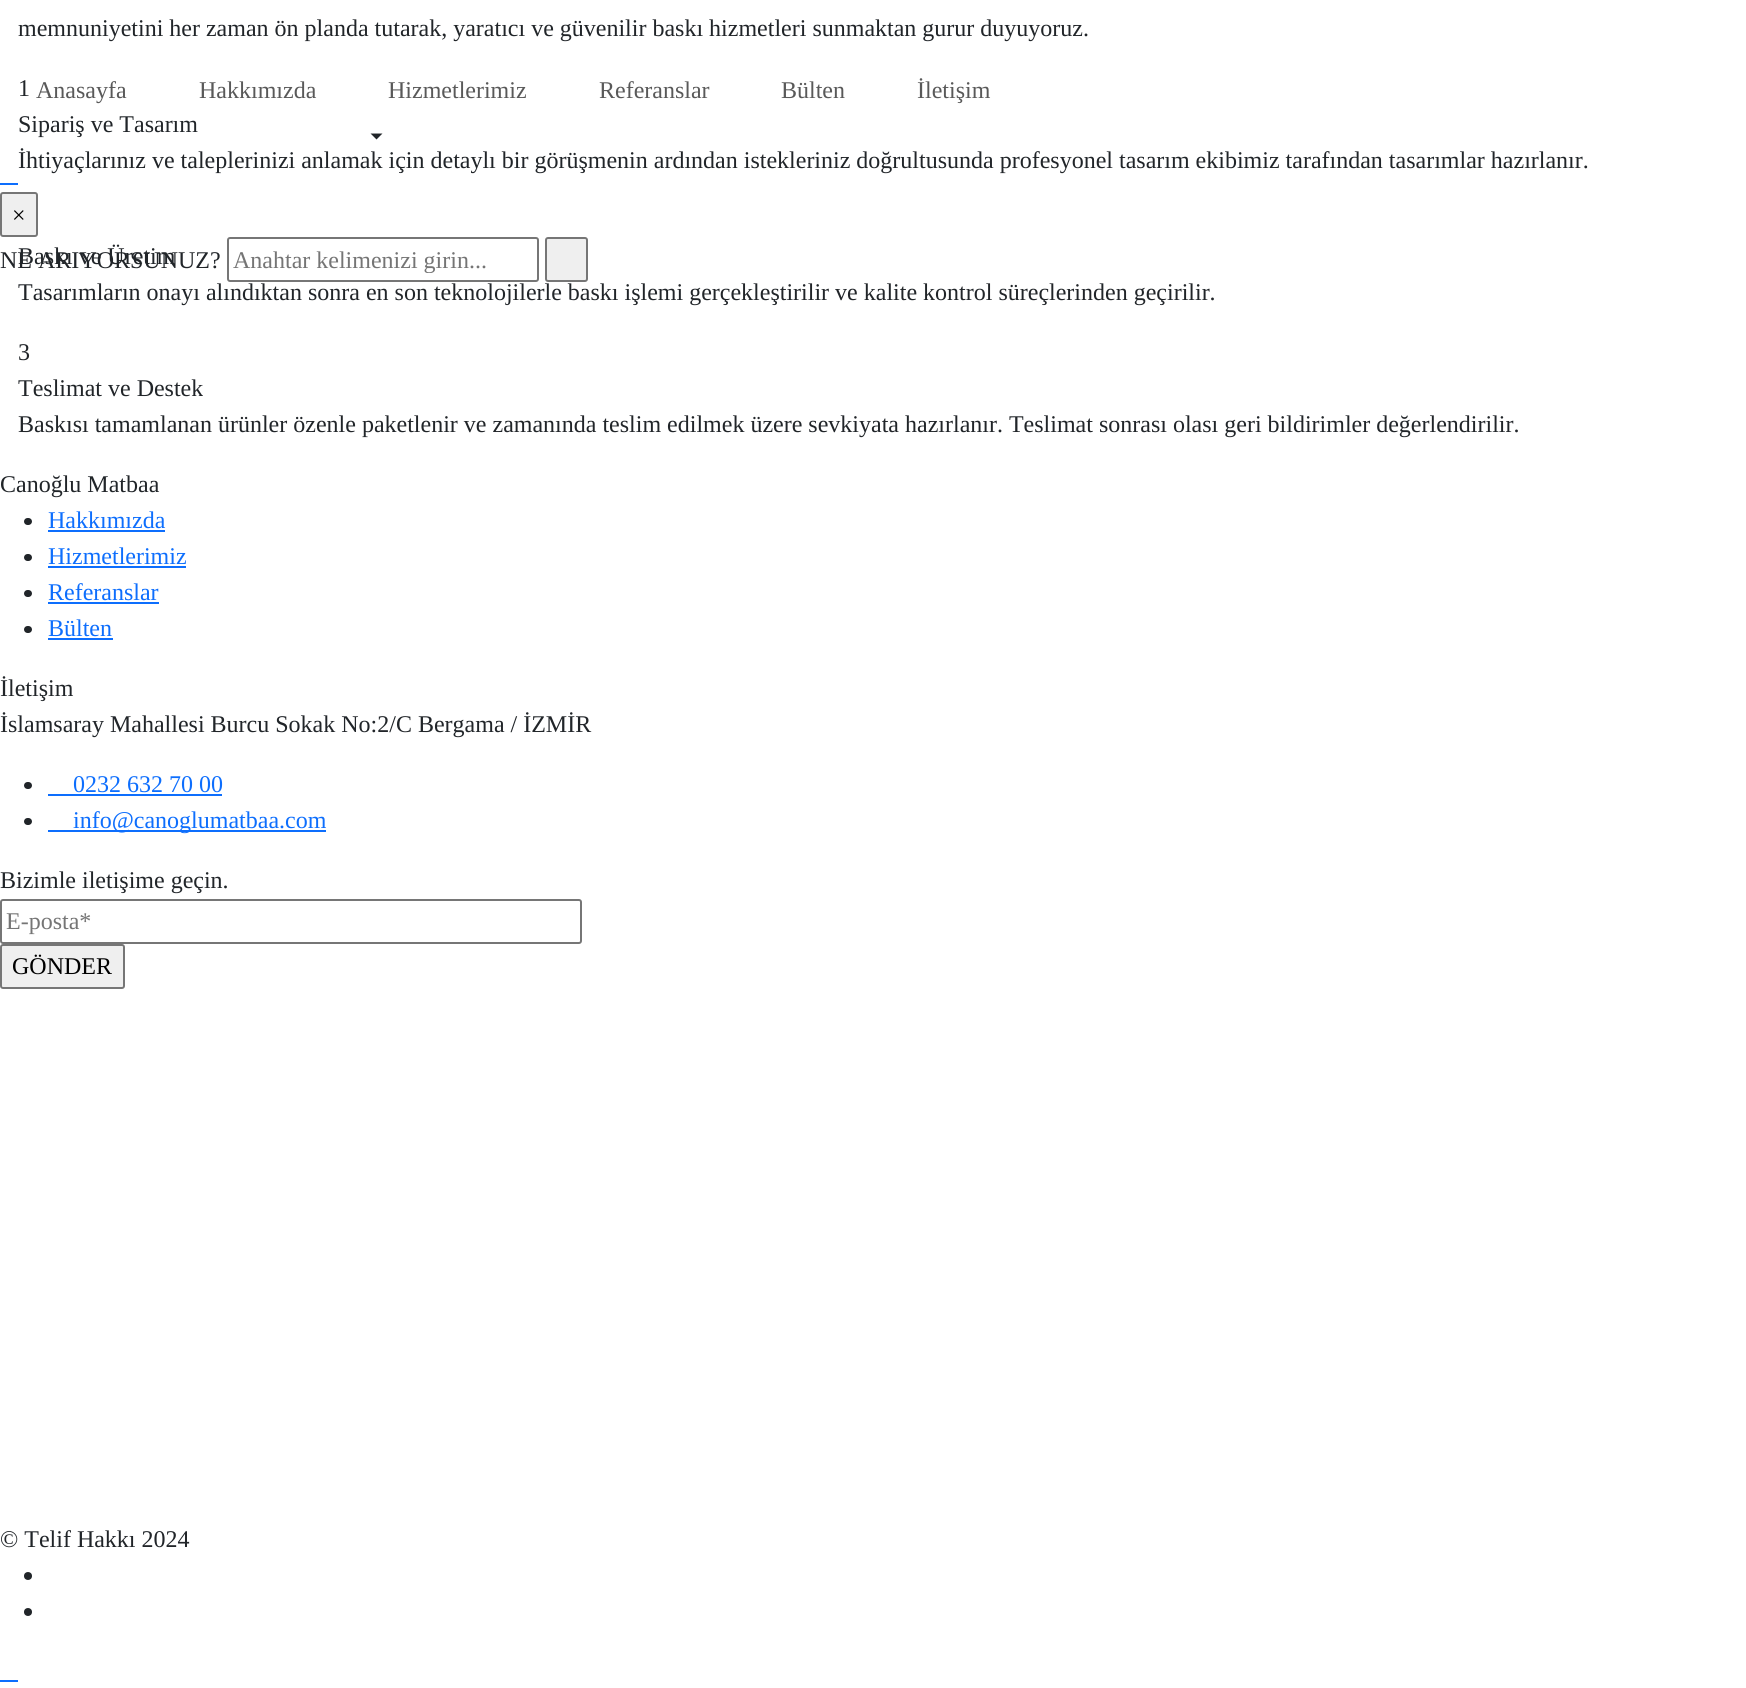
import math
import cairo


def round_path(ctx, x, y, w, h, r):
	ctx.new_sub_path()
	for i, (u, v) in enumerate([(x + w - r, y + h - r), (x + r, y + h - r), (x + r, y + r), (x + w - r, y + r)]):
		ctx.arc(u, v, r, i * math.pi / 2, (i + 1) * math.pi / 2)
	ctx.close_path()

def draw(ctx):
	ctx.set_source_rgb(1, 1, 1)
	ctx.paint()
	ctx.select_font_face('Liberation Serif')
	ctx.set_font_size(24)
	ctx.set_source_rgb(0.129, 0.145, 0.161)
	for x, y, s in [
		(18, 36, 'memnuniyetini her zaman ön planda tutarak, yaratıcı ve güvenilir baskı hizmetleri sunmaktan gurur duyuyoruz.'),
		(18, 96, '1'),
		(18, 132, 'Sipariş ve Tasarım'),
		(18, 168, 'İhtiyaçlarınız ve taleplerinizi anlamak için detaylı bir görüşmenin ardından istekleriniz doğrultusunda profesyonel tasarım ekibimiz tarafından tasarımlar hazırlanır.'),
		(18, 264, 'Baskı ve Üretim'),
		(18, 300, 'Tasarımların onayı alındıktan sonra en son teknolojilerle baskı işlemi gerçekleştirilir ve kalite kontrol süreçlerinden geçirilir.'),
		(18, 360, '3'),
		(18, 396, 'Teslimat ve Destek'),
		(18, 432, 'Baskısı tamamlanan ürünler özenle paketlenir ve zamanında teslim edilmek üzere sevkiyata hazırlanır. Teslimat sonrası olası geri bildirimler değerlendirilir.'),
	]:
		ctx.move_to(x, y)
		ctx.show_text(s)
	ctx.set_source_rgb(0.349, 0.349, 0.349)
	for x, y, s in [
		(36, 98, 'Anasayfa'),
		(199, 98, 'Hakkımızda'),
		(388, 98, 'Hizmetlerimiz'),
	]:
		ctx.move_to(x, y)
		ctx.show_text(s)
	ctx.set_source_rgb(0.129, 0.145, 0.161)
	ctx.new_path()
	ctx.move_to(370.5, 133.5)
	ctx.line_to(382.5, 133.5)
	ctx.line_to(376.5, 139.5)
	ctx.close_path()
	ctx.fill()
	ctx.set_source_rgb(0.349, 0.349, 0.349)
	for x, y, s in [
		(599, 98, 'Referanslar'),
		(781, 98, 'Bülten'),
		(917, 98, 'İletişim'),
	]:
		ctx.move_to(x, y)
		ctx.show_text(s)
	ctx.set_source_rgb(0.051, 0.431, 0.992)
	ctx.rectangle(0, 183, 18, 2)
	ctx.fill()
	ctx.set_source_rgb(0.937, 0.937, 0.937)
	round_path(ctx, 1, 193, 36, 43, 2)
	ctx.fill_preserve()
	ctx.set_source_rgb(0.463, 0.463, 0.463)
	ctx.stroke()
	ctx.set_source_rgb(0, 0, 0)
	ctx.move_to(12, 223)
	ctx.show_text('×')
	ctx.set_source_rgb(0.129, 0.145, 0.161)
	ctx.move_to(0, 268)
	ctx.show_text('NE ARIYORSUNUZ?')
	round_path(ctx, 228, 238, 310, 43, 2)
	ctx.set_source_rgb(0.463, 0.463, 0.463)
	ctx.stroke()
	ctx.save()
	ctx.rectangle(233, 246, 300, 27)
	ctx.clip()
	ctx.set_source_rgb(0.459, 0.459, 0.459)
	ctx.move_to(233, 268)
	ctx.show_text('Anahtar kelimenizi girin...')
	ctx.restore()
	ctx.set_source_rgb(0.937, 0.937, 0.937)
	round_path(ctx, 546, 238, 41, 43, 2)
	ctx.fill_preserve()
	ctx.set_source_rgb(0.463, 0.463, 0.463)
	ctx.stroke()
	ctx.set_source_rgb(0.129, 0.145, 0.161)
	ctx.move_to(0, 492)
	ctx.show_text('Canoğlu Matbaa')
	round_path(ctx, 24, 518, 8, 7, 3.5)
	ctx.fill()
	ctx.set_source_rgb(0.051, 0.431, 0.992)
	ctx.move_to(48, 528)
	ctx.show_text('Hakkımızda')
	ctx.rectangle(48, 530, 117, 2)
	ctx.fill()
	ctx.set_source_rgb(0.129, 0.145, 0.161)
	round_path(ctx, 24, 554, 8, 7, 3.5)
	ctx.fill()
	ctx.set_source_rgb(0.051, 0.431, 0.992)
	ctx.move_to(48, 564)
	ctx.show_text('Hizmetlerimiz')
	ctx.rectangle(48, 566, 138, 2)
	ctx.fill()
	ctx.set_source_rgb(0.129, 0.145, 0.161)
	round_path(ctx, 24, 590, 8, 7, 3.5)
	ctx.fill()
	ctx.set_source_rgb(0.051, 0.431, 0.992)
	ctx.move_to(48, 600)
	ctx.show_text('Referanslar')
	ctx.rectangle(48, 602, 111, 2)
	ctx.fill()
	ctx.set_source_rgb(0.129, 0.145, 0.161)
	round_path(ctx, 24, 626, 8, 7, 3.5)
	ctx.fill()
	ctx.set_source_rgb(0.051, 0.431, 0.992)
	ctx.move_to(48, 636)
	ctx.show_text('Bülten')
	ctx.rectangle(48, 638, 65, 2)
	ctx.fill()
	ctx.set_source_rgb(0.129, 0.145, 0.161)
	ctx.move_to(0, 696)
	ctx.show_text('İletişim')
	ctx.move_to(0, 732)
	ctx.show_text('İslamsaray Mahallesi Burcu Sokak No:2/C Bergama / İZMİR')
	round_path(ctx, 24, 782, 8, 7, 3.5)
	ctx.fill()
	ctx.set_source_rgb(0.051, 0.431, 0.992)
	ctx.move_to(73, 792)
	ctx.show_text('0232 632 70 00')
	ctx.rectangle(48, 794, 174, 2)
	ctx.fill()
	ctx.set_source_rgb(0.129, 0.145, 0.161)
	round_path(ctx, 24, 818, 8, 7, 3.5)
	ctx.fill()
	ctx.set_source_rgb(0.051, 0.431, 0.992)
	ctx.rectangle(48, 830, 278, 2)
	ctx.fill()
	ctx.move_to(73, 828)
	ctx.show_text('info@canoglumatbaa.com')
	ctx.set_source_rgb(0.129, 0.145, 0.161)
	ctx.move_to(0, 888)
	ctx.show_text('Bizimle iletişime geçin.')
	round_path(ctx, 1, 900, 580, 43, 2)
	ctx.set_source_rgb(0.463, 0.463, 0.463)
	ctx.stroke()
	ctx.set_source_rgb(0.459, 0.459, 0.459)
	ctx.move_to(6, 929)
	ctx.show_text('E-posta*')
	ctx.set_source_rgb(0.937, 0.937, 0.937)
	round_path(ctx, 1, 945, 123, 43, 2)
	ctx.fill_preserve()
	ctx.set_source_rgb(0.463, 0.463, 0.463)
	ctx.stroke()
	ctx.set_source_rgb(0, 0, 0)
	ctx.move_to(12, 974)
	ctx.show_text('GÖNDER')
	ctx.set_source_rgb(0.129, 0.145, 0.161)
	ctx.move_to(0, 1547)
	ctx.show_text('© Telif Hakkı 2024')
	ctx.new_path()
	ctx.arc(28, 1576, 4, 0, 2 * math.pi)
	ctx.fill()
	ctx.arc(28, 1612, 4, 0, 2 * math.pi)
	ctx.fill()
	ctx.set_source_rgb(0.051, 0.431, 0.992)
	ctx.rectangle(0, 1680, 18, 2)
	ctx.fill()


surface = cairo.ImageSurface(cairo.FORMAT_RGB24, 1746, 1688)
ctx = cairo.Context(surface)
options = cairo.FontOptions()
options.set_hint_metrics(cairo.HINT_METRICS_OFF)
options.set_hint_style(cairo.HINT_STYLE_NONE)
ctx.set_font_options(options)
ctx.set_miter_limit(4)
draw(ctx)
surface.write_to_png('image.png')
